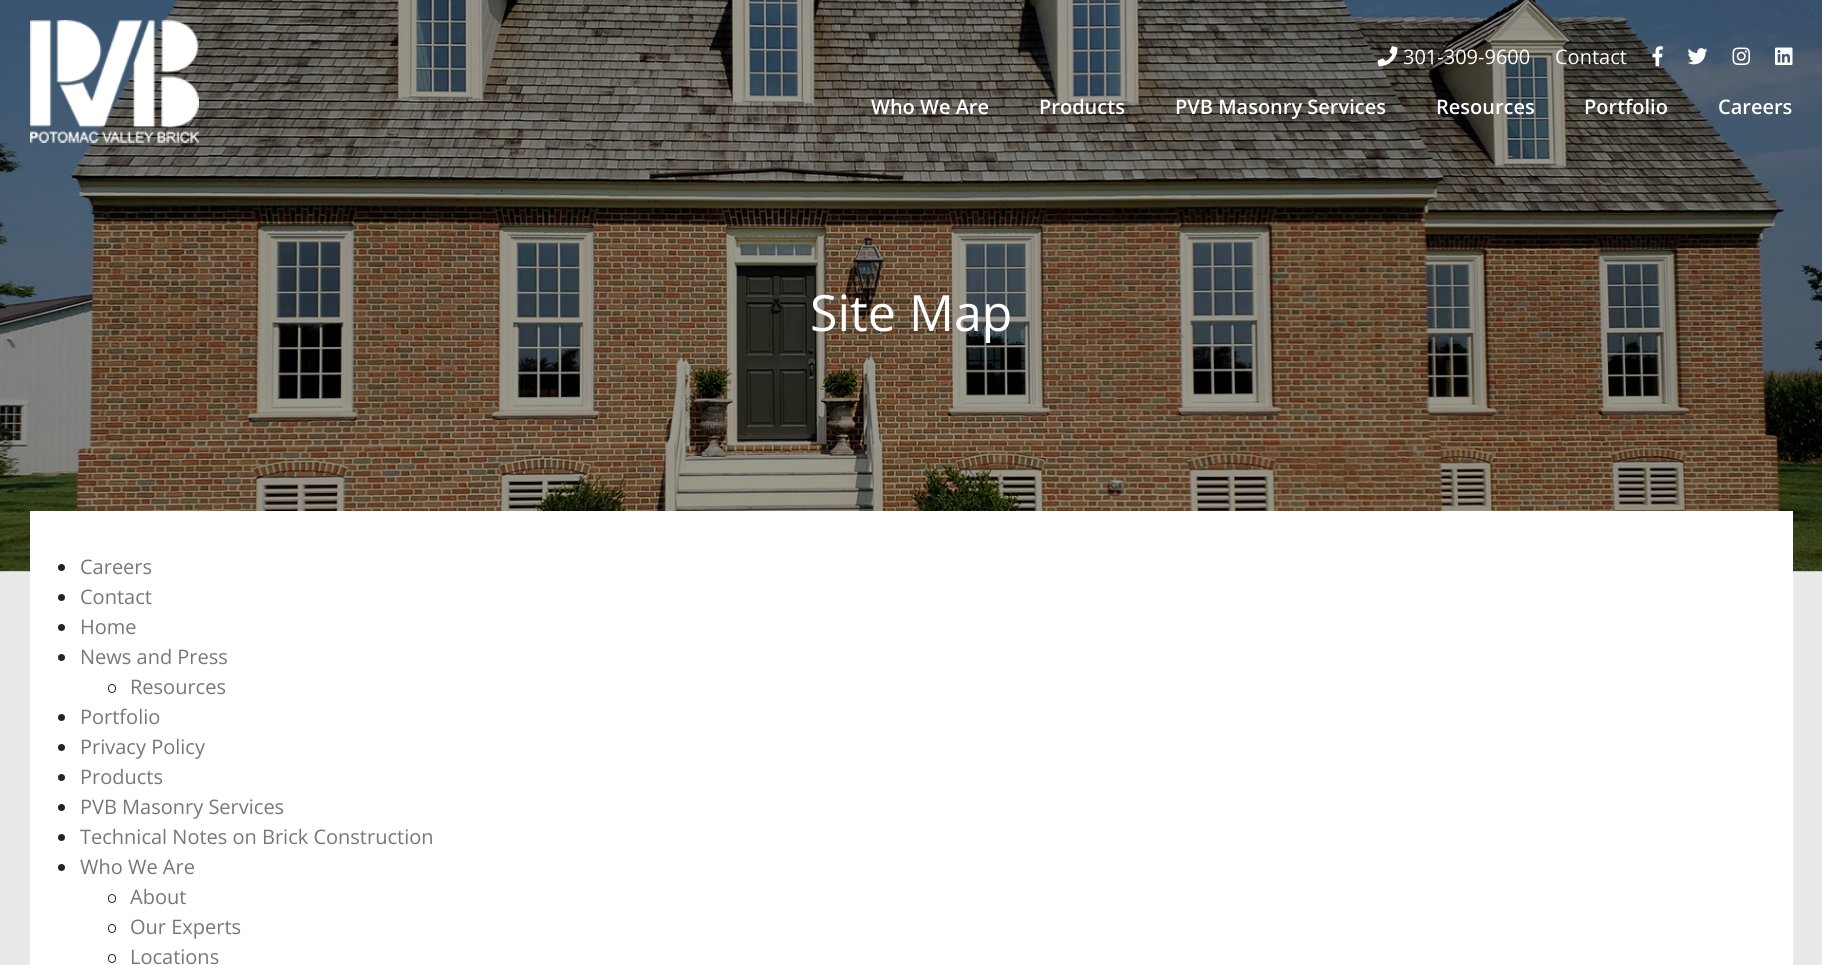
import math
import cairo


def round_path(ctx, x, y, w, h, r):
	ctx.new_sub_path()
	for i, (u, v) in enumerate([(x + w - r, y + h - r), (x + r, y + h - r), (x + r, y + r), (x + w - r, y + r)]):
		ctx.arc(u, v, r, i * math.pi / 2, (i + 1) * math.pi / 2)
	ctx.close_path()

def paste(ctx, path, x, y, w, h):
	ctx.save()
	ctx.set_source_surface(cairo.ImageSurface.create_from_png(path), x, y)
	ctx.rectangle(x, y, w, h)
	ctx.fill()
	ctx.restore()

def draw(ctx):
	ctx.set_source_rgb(0.914, 0.914, 0.914)
	ctx.paint()
	paste(ctx, 'media/7.png', 0, 0, 1822, 572)
	paste(ctx, 'media/1.png', 30, 20, 169, 123)
	paste(ctx, 'media/2.png', 1377, 46, 21, 21)
	ctx.select_font_face('Open Sans')
	ctx.set_font_size(20)
	ctx.set_source_rgb(1, 1, 1)
	ctx.move_to(1403, 64)
	ctx.show_text('301-309-9600')
	ctx.move_to(1555, 64)
	ctx.show_text('Contact')
	paste(ctx, 'media/3.png', 1652, 46, 11, 21)
	paste(ctx, 'media/4.png', 1687, 48, 21, 17)
	paste(ctx, 'media/5.png', 1732, 47, 18, 18)
	paste(ctx, 'media/6.png', 1775, 47, 18, 18)
	ctx.select_font_face('Open Sans SemiBold')
	for x, y, s in [
		(871, 114, 'Who We Are'),
		(1039, 114, 'Products'),
		(1175, 114, 'PVB Masonry Services'),
		(1436, 114, 'Resources'),
		(1584, 114, 'Portfolio'),
		(1718, 114, 'Careers'),
	]:
		ctx.move_to(x, y)
		ctx.show_text(s)
	ctx.select_font_face('Open Sans')
	ctx.set_font_size(50)
	ctx.move_to(810, 331)
	ctx.show_text('Site Map')
	ctx.rectangle(30, 511, 1763, 454)
	ctx.fill()
	ctx.set_source_rgb(0.129, 0.145, 0.161)
	ctx.arc(61.5, 567.5, 3.5, 0, 2 * math.pi)
	ctx.fill()
	ctx.set_font_size(20)
	ctx.set_source_rgb(0.467, 0.467, 0.467)
	ctx.move_to(80, 574)
	ctx.show_text('Careers')
	ctx.set_source_rgb(0.129, 0.145, 0.161)
	ctx.new_path()
	ctx.arc(61.5, 597.5, 3.5, 0, 2 * math.pi)
	ctx.fill()
	ctx.set_source_rgb(0.467, 0.467, 0.467)
	ctx.move_to(80, 604)
	ctx.show_text('Contact')
	ctx.set_source_rgb(0.129, 0.145, 0.161)
	ctx.new_path()
	ctx.arc(61.5, 627.5, 3.5, 0, 2 * math.pi)
	ctx.fill()
	ctx.set_source_rgb(0.467, 0.467, 0.467)
	ctx.move_to(80, 634)
	ctx.show_text('Home')
	ctx.set_source_rgb(0.129, 0.145, 0.161)
	ctx.new_path()
	ctx.arc(61.5, 657.5, 3.5, 0, 2 * math.pi)
	ctx.fill()
	ctx.set_source_rgb(0.467, 0.467, 0.467)
	ctx.move_to(80, 664)
	ctx.show_text('News and Press')
	round_path(ctx, 108.5, 684.5, 7, 8, 3.5)
	ctx.set_source_rgb(0.129, 0.145, 0.161)
	ctx.set_line_width(1)
	ctx.stroke()
	ctx.set_source_rgb(0.467, 0.467, 0.467)
	ctx.move_to(130, 694)
	ctx.show_text('Resources')
	ctx.set_source_rgb(0.129, 0.145, 0.161)
	ctx.new_path()
	ctx.arc(61.5, 717.5, 3.5, 0, 2 * math.pi)
	ctx.fill()
	ctx.set_source_rgb(0.467, 0.467, 0.467)
	ctx.move_to(80, 724)
	ctx.show_text('Portfolio')
	ctx.set_source_rgb(0.129, 0.145, 0.161)
	ctx.new_path()
	ctx.arc(61.5, 747.5, 3.5, 0, 2 * math.pi)
	ctx.fill()
	ctx.set_source_rgb(0.467, 0.467, 0.467)
	ctx.move_to(80, 754)
	ctx.show_text('Privacy Policy')
	ctx.set_source_rgb(0.129, 0.145, 0.161)
	ctx.new_path()
	ctx.arc(61.5, 777.5, 3.5, 0, 2 * math.pi)
	ctx.fill()
	ctx.set_source_rgb(0.467, 0.467, 0.467)
	ctx.move_to(80, 784)
	ctx.show_text('Products')
	ctx.set_source_rgb(0.129, 0.145, 0.161)
	ctx.new_path()
	ctx.arc(61.5, 807.5, 3.5, 0, 2 * math.pi)
	ctx.fill()
	ctx.set_source_rgb(0.467, 0.467, 0.467)
	ctx.move_to(80, 814)
	ctx.show_text('PVB Masonry Services')
	ctx.set_source_rgb(0.129, 0.145, 0.161)
	ctx.new_path()
	ctx.arc(61.5, 837.5, 3.5, 0, 2 * math.pi)
	ctx.fill()
	ctx.set_source_rgb(0.467, 0.467, 0.467)
	ctx.move_to(80, 844)
	ctx.show_text('Technical Notes on Brick Construction')
	ctx.set_source_rgb(0.129, 0.145, 0.161)
	ctx.new_path()
	ctx.arc(61.5, 867.5, 3.5, 0, 2 * math.pi)
	ctx.fill()
	ctx.set_source_rgb(0.467, 0.467, 0.467)
	ctx.move_to(80, 874)
	ctx.show_text('Who We Are')
	round_path(ctx, 108.5, 894.5, 7, 8, 3.5)
	ctx.set_source_rgb(0.129, 0.145, 0.161)
	ctx.stroke()
	ctx.set_source_rgb(0.467, 0.467, 0.467)
	ctx.move_to(130, 904)
	ctx.show_text('About')
	round_path(ctx, 108.5, 924.5, 7, 8, 3.5)
	ctx.set_source_rgb(0.129, 0.145, 0.161)
	ctx.stroke()
	ctx.set_source_rgb(0.467, 0.467, 0.467)
	ctx.move_to(130, 934)
	ctx.show_text('Our Experts')
	round_path(ctx, 108.5, 954.5, 7, 8, 3.5)
	ctx.set_source_rgb(0.129, 0.145, 0.161)
	ctx.stroke()
	ctx.set_source_rgb(0.467, 0.467, 0.467)
	ctx.move_to(130, 964)
	ctx.show_text('Locations')


surface = cairo.ImageSurface(cairo.FORMAT_RGB24, 1822, 965)
ctx = cairo.Context(surface)
options = cairo.FontOptions()
options.set_hint_metrics(cairo.HINT_METRICS_OFF)
options.set_hint_style(cairo.HINT_STYLE_NONE)
ctx.set_font_options(options)
ctx.set_miter_limit(4)
draw(ctx)
surface.write_to_png('image.png')
